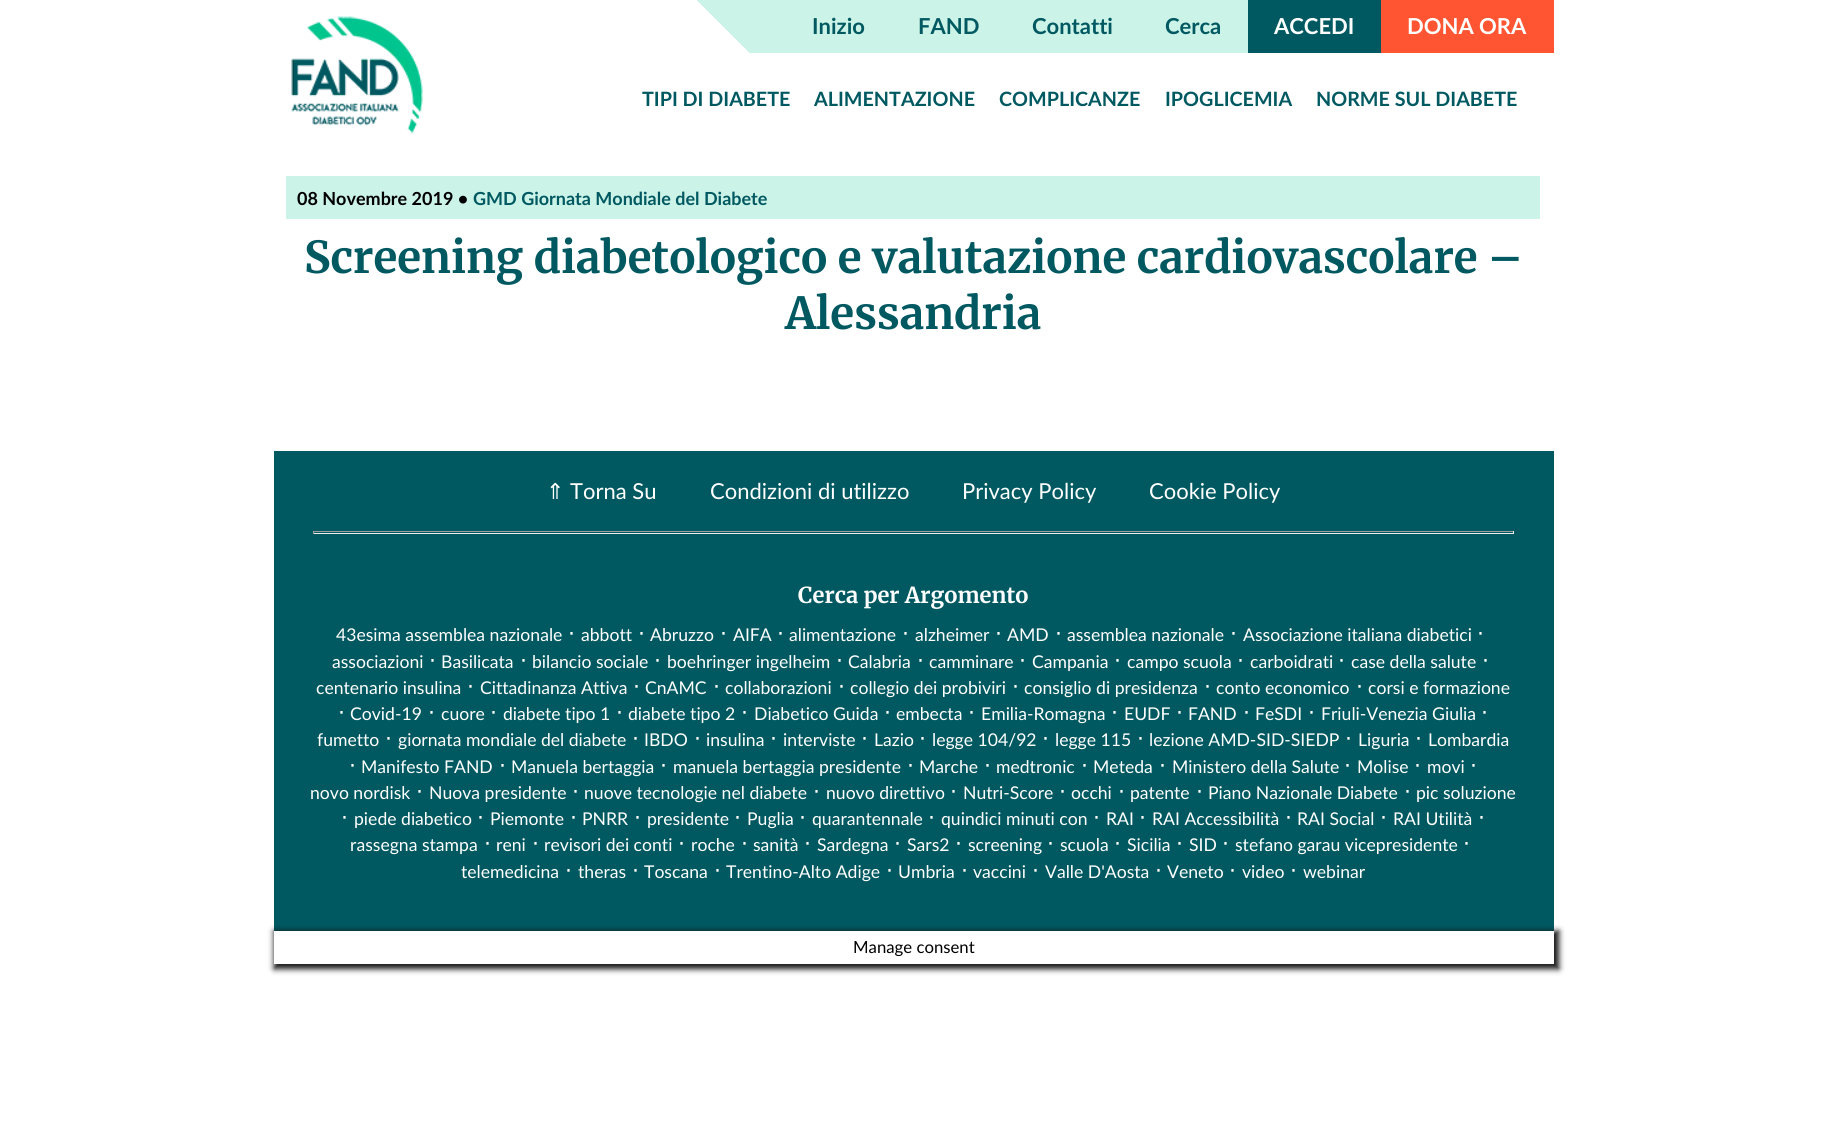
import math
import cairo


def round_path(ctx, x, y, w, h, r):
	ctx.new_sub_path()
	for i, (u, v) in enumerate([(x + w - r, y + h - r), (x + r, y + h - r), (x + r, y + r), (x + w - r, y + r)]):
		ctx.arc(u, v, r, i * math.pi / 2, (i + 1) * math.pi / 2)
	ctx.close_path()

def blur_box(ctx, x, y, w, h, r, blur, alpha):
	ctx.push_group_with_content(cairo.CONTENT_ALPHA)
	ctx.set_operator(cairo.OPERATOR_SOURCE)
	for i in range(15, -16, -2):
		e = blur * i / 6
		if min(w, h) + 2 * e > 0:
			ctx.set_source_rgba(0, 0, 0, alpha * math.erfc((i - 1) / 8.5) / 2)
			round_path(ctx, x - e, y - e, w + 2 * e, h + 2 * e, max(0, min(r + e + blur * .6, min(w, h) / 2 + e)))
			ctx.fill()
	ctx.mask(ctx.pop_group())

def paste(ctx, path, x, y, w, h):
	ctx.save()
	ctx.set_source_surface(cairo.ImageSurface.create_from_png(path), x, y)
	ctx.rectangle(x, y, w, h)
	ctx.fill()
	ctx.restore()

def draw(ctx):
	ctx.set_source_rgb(1, 1, 1)
	ctx.paint()
	paste(ctx, 'media/1.png', 291, 16, 132, 118)
	gradient = cairo.LinearGradient(678, 71, 767, -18)
	gradient.add_color_stop_rgba(0.5, 1, 1, 1, 1)
	gradient.add_color_stop_rgba(0.5, 0.8, 0.953, 0.91, 1)
	ctx.set_source(gradient)
	ctx.rectangle(697, 0, 88, 53)
	ctx.fill()
	ctx.set_source_rgb(0.8, 0.953, 0.91)
	ctx.rectangle(785, 0, 463, 53)
	ctx.fill()
	ctx.select_font_face('Lato', cairo.FONT_SLANT_NORMAL, cairo.FONT_WEIGHT_BOLD)
	ctx.set_font_size(22)
	ctx.set_source_rgb(0, 0.349, 0.38)
	for x, y, s in [
		(812, 34, 'Inizio'),
		(918, 34, 'FAND'),
		(1032, 34, 'Contatti'),
		(1165, 34, 'Cerca'),
	]:
		ctx.move_to(x, y)
		ctx.show_text(s)
	ctx.rectangle(1248, 0, 133, 53)
	ctx.fill()
	ctx.set_source_rgb(1, 1, 1)
	ctx.move_to(1274, 34)
	ctx.show_text('ACCEDI')
	ctx.set_source_rgb(1, 0.333, 0.2)
	ctx.rectangle(1381, 0, 173, 53)
	ctx.fill()
	ctx.set_source_rgb(1, 1, 1)
	ctx.move_to(1407, 34)
	ctx.show_text('DONA ORA')
	ctx.set_font_size(19.75)
	ctx.set_source_rgb(0, 0.349, 0.38)
	for x, y, s in [
		(642, 106, 'TIPI DI DIABETE'),
		(814, 106, 'ALIMENTAZIONE'),
		(999, 106, 'COMPLICANZE'),
		(1165, 106, 'IPOGLICEMIA'),
		(1316, 106, 'NORME SUL DIABETE'),
	]:
		ctx.move_to(x, y)
		ctx.show_text(s)
	ctx.set_source_rgb(0.8, 0.953, 0.91)
	ctx.rectangle(286, 176, 1254, 43)
	ctx.fill()
	ctx.set_font_size(18)
	ctx.set_source_rgb(0, 0, 0)
	ctx.move_to(297, 205)
	ctx.show_text('08 Novembre 2019 •')
	ctx.set_source_rgb(0, 0.349, 0.38)
	ctx.move_to(473, 205)
	ctx.show_text('GMD Giornata Mondiale del Diabete')
	ctx.select_font_face('Merriweather', cairo.FONT_SLANT_NORMAL, cairo.FONT_WEIGHT_BOLD)
	ctx.set_font_size(44)
	ctx.move_to(304, 273)
	ctx.show_text('Screening diabetologico e valutazione cardiovascolare –')
	ctx.move_to(785, 329)
	ctx.show_text('Alessandria')
	ctx.rectangle(274, 451, 1280, 480)
	ctx.fill()
	ctx.select_font_face('DejaVu Sans')
	ctx.set_font_size(22)
	ctx.set_source_rgb(1, 1, 1)
	ctx.move_to(546, 499)
	ctx.show_text('⇑')
	ctx.select_font_face('Lato')
	for x, y, s in [
		(570, 499, 'Torna Su'),
		(710, 499, 'Condizioni di utilizzo'),
		(962, 499, 'Privacy Policy'),
		(1149, 499, 'Cookie Policy'),
	]:
		ctx.move_to(x, y)
		ctx.show_text(s)
	ctx.set_source_rgb(0.624, 0.624, 0.624)
	ctx.rectangle(313, 531, 1201, 1)
	ctx.fill()
	ctx.set_source_rgb(0.933, 0.933, 0.933)
	ctx.rectangle(1513, 531, 1, 3)
	ctx.rectangle(313, 533, 1201, 1)
	ctx.fill()
	ctx.set_source_rgb(0.624, 0.624, 0.624)
	ctx.rectangle(313, 531, 1, 3)
	ctx.fill()
	ctx.select_font_face('Merriweather', cairo.FONT_SLANT_NORMAL, cairo.FONT_WEIGHT_BOLD)
	ctx.set_source_rgb(1, 1, 1)
	ctx.move_to(798, 603)
	ctx.show_text('Cerca per Argomento')
	ctx.select_font_face('Lato')
	ctx.set_font_size(17.6)
	ctx.move_to(336, 641)
	ctx.show_text('43esima assemblea nazionale')
	ctx.select_font_face('DejaVu Sans')
	ctx.set_font_size(22)
	ctx.move_to(568, 641)
	ctx.show_text('⋅')
	ctx.select_font_face('Lato')
	ctx.set_font_size(17.6)
	ctx.move_to(581, 641)
	ctx.show_text('abbott')
	ctx.select_font_face('DejaVu Sans')
	ctx.set_font_size(22)
	ctx.move_to(638, 641)
	ctx.show_text('⋅')
	ctx.select_font_face('Lato')
	ctx.set_font_size(17.6)
	ctx.move_to(650, 641)
	ctx.show_text('Abruzzo')
	ctx.select_font_face('DejaVu Sans')
	ctx.set_font_size(22)
	ctx.move_to(720, 641)
	ctx.show_text('⋅')
	ctx.select_font_face('Lato')
	ctx.set_font_size(17.6)
	ctx.move_to(733, 641)
	ctx.show_text('AIFA')
	ctx.select_font_face('DejaVu Sans')
	ctx.set_font_size(22)
	ctx.move_to(777, 641)
	ctx.show_text('⋅')
	ctx.select_font_face('Lato')
	ctx.set_font_size(17.6)
	ctx.move_to(789, 641)
	ctx.show_text('alimentazione')
	ctx.select_font_face('DejaVu Sans')
	ctx.set_font_size(22)
	ctx.move_to(902, 641)
	ctx.show_text('⋅')
	ctx.select_font_face('Lato')
	ctx.set_font_size(17.6)
	ctx.move_to(915, 641)
	ctx.show_text('alzheimer')
	ctx.select_font_face('DejaVu Sans')
	ctx.set_font_size(22)
	ctx.move_to(995, 641)
	ctx.show_text('⋅')
	ctx.select_font_face('Lato')
	ctx.set_font_size(17.6)
	ctx.move_to(1007, 641)
	ctx.show_text('AMD')
	ctx.select_font_face('DejaVu Sans')
	ctx.set_font_size(22)
	ctx.move_to(1055, 641)
	ctx.show_text('⋅')
	ctx.select_font_face('Lato')
	ctx.set_font_size(17.6)
	ctx.move_to(1067, 641)
	ctx.show_text('assemblea nazionale')
	ctx.select_font_face('DejaVu Sans')
	ctx.set_font_size(22)
	ctx.move_to(1230, 641)
	ctx.show_text('⋅')
	ctx.select_font_face('Lato')
	ctx.set_font_size(17.6)
	ctx.move_to(1243, 641)
	ctx.show_text('Associazione italiana diabetici')
	ctx.select_font_face('DejaVu Sans')
	ctx.set_font_size(22)
	ctx.move_to(1477, 641)
	ctx.show_text('⋅')
	ctx.select_font_face('Lato')
	ctx.set_font_size(17.6)
	ctx.move_to(332, 668)
	ctx.show_text('associazioni')
	ctx.select_font_face('DejaVu Sans')
	ctx.set_font_size(22)
	ctx.move_to(429, 668)
	ctx.show_text('⋅')
	ctx.select_font_face('Lato')
	ctx.set_font_size(17.6)
	ctx.move_to(441, 668)
	ctx.show_text('Basilicata')
	ctx.select_font_face('DejaVu Sans')
	ctx.set_font_size(22)
	ctx.move_to(520, 668)
	ctx.show_text('⋅')
	ctx.select_font_face('Lato')
	ctx.set_font_size(17.6)
	ctx.move_to(532, 668)
	ctx.show_text('bilancio sociale')
	ctx.select_font_face('DejaVu Sans')
	ctx.set_font_size(22)
	ctx.move_to(654, 668)
	ctx.show_text('⋅')
	ctx.select_font_face('Lato')
	ctx.set_font_size(17.6)
	ctx.move_to(667, 668)
	ctx.show_text('boehringer ingelheim')
	ctx.select_font_face('DejaVu Sans')
	ctx.set_font_size(22)
	ctx.move_to(836, 668)
	ctx.show_text('⋅')
	ctx.select_font_face('Lato')
	ctx.set_font_size(17.6)
	ctx.move_to(848, 668)
	ctx.show_text('Calabria')
	ctx.select_font_face('DejaVu Sans')
	ctx.set_font_size(22)
	ctx.move_to(917, 668)
	ctx.show_text('⋅')
	ctx.select_font_face('Lato')
	ctx.set_font_size(17.6)
	ctx.move_to(929, 668)
	ctx.show_text('camminare')
	ctx.select_font_face('DejaVu Sans')
	ctx.set_font_size(22)
	ctx.move_to(1019, 668)
	ctx.show_text('⋅')
	ctx.select_font_face('Lato')
	ctx.set_font_size(17.6)
	ctx.move_to(1032, 668)
	ctx.show_text('Campania')
	ctx.select_font_face('DejaVu Sans')
	ctx.set_font_size(22)
	ctx.move_to(1114, 668)
	ctx.show_text('⋅')
	ctx.select_font_face('Lato')
	ctx.set_font_size(17.6)
	ctx.move_to(1127, 668)
	ctx.show_text('campo scuola')
	ctx.select_font_face('DejaVu Sans')
	ctx.set_font_size(22)
	ctx.move_to(1237, 668)
	ctx.show_text('⋅')
	ctx.select_font_face('Lato')
	ctx.set_font_size(17.6)
	ctx.move_to(1250, 668)
	ctx.show_text('carboidrati')
	ctx.select_font_face('DejaVu Sans')
	ctx.set_font_size(22)
	ctx.move_to(1338, 668)
	ctx.show_text('⋅')
	ctx.select_font_face('Lato')
	ctx.set_font_size(17.6)
	ctx.move_to(1351, 668)
	ctx.show_text('case della salute')
	ctx.select_font_face('DejaVu Sans')
	ctx.set_font_size(22)
	ctx.move_to(1482, 668)
	ctx.show_text('⋅')
	ctx.select_font_face('Lato')
	ctx.set_font_size(17.6)
	ctx.move_to(316, 694)
	ctx.show_text('centenario insulina')
	ctx.select_font_face('DejaVu Sans')
	ctx.set_font_size(22)
	ctx.move_to(467, 694)
	ctx.show_text('⋅')
	ctx.select_font_face('Lato')
	ctx.set_font_size(17.6)
	ctx.move_to(480, 694)
	ctx.show_text('Cittadinanza Attiva')
	ctx.select_font_face('DejaVu Sans')
	ctx.set_font_size(22)
	ctx.move_to(633, 694)
	ctx.show_text('⋅')
	ctx.select_font_face('Lato')
	ctx.set_font_size(17.6)
	ctx.move_to(645, 694)
	ctx.show_text('CnAMC')
	ctx.select_font_face('DejaVu Sans')
	ctx.set_font_size(22)
	ctx.move_to(713, 694)
	ctx.show_text('⋅')
	ctx.select_font_face('Lato')
	ctx.set_font_size(17.6)
	ctx.move_to(725, 694)
	ctx.show_text('collaborazioni')
	ctx.select_font_face('DejaVu Sans')
	ctx.set_font_size(22)
	ctx.move_to(838, 694)
	ctx.show_text('⋅')
	ctx.select_font_face('Lato')
	ctx.set_font_size(17.6)
	ctx.move_to(850, 694)
	ctx.show_text('collegio dei probiviri')
	ctx.select_font_face('DejaVu Sans')
	ctx.set_font_size(22)
	ctx.move_to(1012, 694)
	ctx.show_text('⋅')
	ctx.select_font_face('Lato')
	ctx.set_font_size(17.6)
	ctx.move_to(1024, 694)
	ctx.show_text('consiglio di presidenza')
	ctx.select_font_face('DejaVu Sans')
	ctx.set_font_size(22)
	ctx.move_to(1204, 694)
	ctx.show_text('⋅')
	ctx.select_font_face('Lato')
	ctx.set_font_size(17.6)
	ctx.move_to(1216, 694)
	ctx.show_text('conto economico')
	ctx.select_font_face('DejaVu Sans')
	ctx.set_font_size(22)
	ctx.move_to(1356, 694)
	ctx.show_text('⋅')
	ctx.select_font_face('Lato')
	ctx.set_font_size(17.6)
	ctx.move_to(1368, 694)
	ctx.show_text('corsi e formazione')
	ctx.select_font_face('DejaVu Sans')
	ctx.set_font_size(22)
	ctx.move_to(338, 720)
	ctx.show_text('⋅')
	ctx.select_font_face('Lato')
	ctx.set_font_size(17.6)
	ctx.move_to(350, 720)
	ctx.show_text('Covid-19')
	ctx.select_font_face('DejaVu Sans')
	ctx.set_font_size(22)
	ctx.move_to(428, 720)
	ctx.show_text('⋅')
	ctx.select_font_face('Lato')
	ctx.set_font_size(17.6)
	ctx.move_to(441, 720)
	ctx.show_text('cuore')
	ctx.select_font_face('DejaVu Sans')
	ctx.set_font_size(22)
	ctx.move_to(490, 720)
	ctx.show_text('⋅')
	ctx.select_font_face('Lato')
	ctx.set_font_size(17.6)
	ctx.move_to(503, 720)
	ctx.show_text('diabete tipo 1')
	ctx.select_font_face('DejaVu Sans')
	ctx.set_font_size(22)
	ctx.move_to(616, 720)
	ctx.show_text('⋅')
	ctx.select_font_face('Lato')
	ctx.set_font_size(17.6)
	ctx.move_to(628, 720)
	ctx.show_text('diabete tipo 2')
	ctx.select_font_face('DejaVu Sans')
	ctx.set_font_size(22)
	ctx.move_to(741, 720)
	ctx.show_text('⋅')
	ctx.select_font_face('Lato')
	ctx.set_font_size(17.6)
	ctx.move_to(754, 720)
	ctx.show_text('Diabetico Guida')
	ctx.select_font_face('DejaVu Sans')
	ctx.set_font_size(22)
	ctx.move_to(884, 720)
	ctx.show_text('⋅')
	ctx.select_font_face('Lato')
	ctx.set_font_size(17.6)
	ctx.move_to(896, 720)
	ctx.show_text('embecta')
	ctx.select_font_face('DejaVu Sans')
	ctx.set_font_size(22)
	ctx.move_to(968, 720)
	ctx.show_text('⋅')
	ctx.select_font_face('Lato')
	ctx.set_font_size(17.6)
	ctx.move_to(981, 720)
	ctx.show_text('Emilia-Romagna')
	ctx.select_font_face('DejaVu Sans')
	ctx.set_font_size(22)
	ctx.move_to(1111, 720)
	ctx.show_text('⋅')
	ctx.select_font_face('Lato')
	ctx.set_font_size(17.6)
	ctx.move_to(1124, 720)
	ctx.show_text('EUDF')
	ctx.select_font_face('DejaVu Sans')
	ctx.set_font_size(22)
	ctx.move_to(1176, 720)
	ctx.show_text('⋅')
	ctx.select_font_face('Lato')
	ctx.set_font_size(17.6)
	ctx.move_to(1188, 720)
	ctx.show_text('FAND')
	ctx.select_font_face('DejaVu Sans')
	ctx.set_font_size(22)
	ctx.move_to(1243, 720)
	ctx.show_text('⋅')
	ctx.select_font_face('Lato')
	ctx.set_font_size(17.6)
	ctx.move_to(1255, 720)
	ctx.show_text('FeSDI')
	ctx.select_font_face('DejaVu Sans')
	ctx.set_font_size(22)
	ctx.move_to(1308, 720)
	ctx.show_text('⋅')
	ctx.select_font_face('Lato')
	ctx.set_font_size(17.6)
	ctx.move_to(1321, 720)
	ctx.show_text('Friuli-Venezia Giulia')
	ctx.select_font_face('DejaVu Sans')
	ctx.set_font_size(22)
	ctx.move_to(1481, 720)
	ctx.show_text('⋅')
	ctx.select_font_face('Lato')
	ctx.set_font_size(17.6)
	ctx.move_to(317, 746)
	ctx.show_text('fumetto')
	ctx.select_font_face('DejaVu Sans')
	ctx.set_font_size(22)
	ctx.move_to(385, 746)
	ctx.show_text('⋅')
	ctx.select_font_face('Lato')
	ctx.set_font_size(17.6)
	ctx.move_to(398, 746)
	ctx.show_text('giornata mondiale del diabete')
	ctx.select_font_face('DejaVu Sans')
	ctx.set_font_size(22)
	ctx.move_to(632, 746)
	ctx.show_text('⋅')
	ctx.select_font_face('Lato')
	ctx.set_font_size(17.6)
	ctx.move_to(644, 746)
	ctx.show_text('IBDO')
	ctx.select_font_face('DejaVu Sans')
	ctx.set_font_size(22)
	ctx.move_to(694, 746)
	ctx.show_text('⋅')
	ctx.select_font_face('Lato')
	ctx.set_font_size(17.6)
	ctx.move_to(706, 746)
	ctx.show_text('insulina')
	ctx.select_font_face('DejaVu Sans')
	ctx.set_font_size(22)
	ctx.move_to(770, 746)
	ctx.show_text('⋅')
	ctx.select_font_face('Lato')
	ctx.set_font_size(17.6)
	ctx.move_to(783, 746)
	ctx.show_text('interviste')
	ctx.select_font_face('DejaVu Sans')
	ctx.set_font_size(22)
	ctx.move_to(861, 746)
	ctx.show_text('⋅')
	ctx.select_font_face('Lato')
	ctx.set_font_size(17.6)
	ctx.move_to(874, 746)
	ctx.show_text('Lazio')
	ctx.select_font_face('DejaVu Sans')
	ctx.set_font_size(22)
	ctx.move_to(919, 746)
	ctx.show_text('⋅')
	ctx.select_font_face('Lato')
	ctx.set_font_size(17.6)
	ctx.move_to(932, 746)
	ctx.show_text('legge 104/92')
	ctx.select_font_face('DejaVu Sans')
	ctx.set_font_size(22)
	ctx.move_to(1042, 746)
	ctx.show_text('⋅')
	ctx.select_font_face('Lato')
	ctx.set_font_size(17.6)
	ctx.move_to(1055, 746)
	ctx.show_text('legge 115')
	ctx.select_font_face('DejaVu Sans')
	ctx.set_font_size(22)
	ctx.move_to(1137, 746)
	ctx.show_text('⋅')
	ctx.select_font_face('Lato')
	ctx.set_font_size(17.6)
	ctx.move_to(1149, 746)
	ctx.show_text('lezione AMD-SID-SIEDP')
	ctx.select_font_face('DejaVu Sans')
	ctx.set_font_size(22)
	ctx.move_to(1345, 746)
	ctx.show_text('⋅')
	ctx.select_font_face('Lato')
	ctx.set_font_size(17.6)
	ctx.move_to(1358, 746)
	ctx.show_text('Liguria')
	ctx.select_font_face('DejaVu Sans')
	ctx.set_font_size(22)
	ctx.move_to(1415, 746)
	ctx.show_text('⋅')
	ctx.select_font_face('Lato')
	ctx.set_font_size(17.6)
	ctx.move_to(1428, 746)
	ctx.show_text('Lombardia')
	ctx.select_font_face('DejaVu Sans')
	ctx.set_font_size(22)
	ctx.move_to(349, 773)
	ctx.show_text('⋅')
	ctx.select_font_face('Lato')
	ctx.set_font_size(17.6)
	ctx.move_to(361, 773)
	ctx.show_text('Manifesto FAND')
	ctx.select_font_face('DejaVu Sans')
	ctx.set_font_size(22)
	ctx.move_to(499, 773)
	ctx.show_text('⋅')
	ctx.select_font_face('Lato')
	ctx.set_font_size(17.6)
	ctx.move_to(511, 773)
	ctx.show_text('Manuela bertaggia')
	ctx.select_font_face('DejaVu Sans')
	ctx.set_font_size(22)
	ctx.move_to(660, 773)
	ctx.show_text('⋅')
	ctx.select_font_face('Lato')
	ctx.set_font_size(17.6)
	ctx.move_to(673, 773)
	ctx.show_text('manuela bertaggia presidente')
	ctx.select_font_face('DejaVu Sans')
	ctx.set_font_size(22)
	ctx.move_to(907, 773)
	ctx.show_text('⋅')
	ctx.select_font_face('Lato')
	ctx.set_font_size(17.6)
	ctx.move_to(919, 773)
	ctx.show_text('Marche')
	ctx.select_font_face('DejaVu Sans')
	ctx.set_font_size(22)
	ctx.move_to(984, 773)
	ctx.show_text('⋅')
	ctx.select_font_face('Lato')
	ctx.set_font_size(17.6)
	ctx.move_to(996, 773)
	ctx.show_text('medtronic')
	ctx.select_font_face('DejaVu Sans')
	ctx.set_font_size(22)
	ctx.move_to(1081, 773)
	ctx.show_text('⋅')
	ctx.select_font_face('Lato')
	ctx.set_font_size(17.6)
	ctx.move_to(1093, 773)
	ctx.show_text('Meteda')
	ctx.select_font_face('DejaVu Sans')
	ctx.set_font_size(22)
	ctx.move_to(1159, 773)
	ctx.show_text('⋅')
	ctx.select_font_face('Lato')
	ctx.set_font_size(17.6)
	ctx.move_to(1172, 773)
	ctx.show_text('Ministero della Salute')
	ctx.select_font_face('DejaVu Sans')
	ctx.set_font_size(22)
	ctx.move_to(1344, 773)
	ctx.show_text('⋅')
	ctx.select_font_face('Lato')
	ctx.set_font_size(17.6)
	ctx.move_to(1357, 773)
	ctx.show_text('Molise')
	ctx.select_font_face('DejaVu Sans')
	ctx.set_font_size(22)
	ctx.move_to(1414, 773)
	ctx.show_text('⋅')
	ctx.select_font_face('Lato')
	ctx.set_font_size(17.6)
	ctx.move_to(1427, 773)
	ctx.show_text('movi')
	ctx.select_font_face('DejaVu Sans')
	ctx.set_font_size(22)
	ctx.move_to(1470, 773)
	ctx.show_text('⋅')
	ctx.select_font_face('Lato')
	ctx.set_font_size(17.6)
	ctx.move_to(310, 799)
	ctx.show_text('novo nordisk')
	ctx.select_font_face('DejaVu Sans')
	ctx.set_font_size(22)
	ctx.move_to(416, 799)
	ctx.show_text('⋅')
	ctx.select_font_face('Lato')
	ctx.set_font_size(17.6)
	ctx.move_to(429, 799)
	ctx.show_text('Nuova presidente')
	ctx.select_font_face('DejaVu Sans')
	ctx.set_font_size(22)
	ctx.move_to(572, 799)
	ctx.show_text('⋅')
	ctx.select_font_face('Lato')
	ctx.set_font_size(17.6)
	ctx.move_to(584, 799)
	ctx.show_text('nuove tecnologie nel diabete')
	ctx.select_font_face('DejaVu Sans')
	ctx.set_font_size(22)
	ctx.move_to(813, 799)
	ctx.show_text('⋅')
	ctx.select_font_face('Lato')
	ctx.set_font_size(17.6)
	ctx.move_to(826, 799)
	ctx.show_text('nuovo direttivo')
	ctx.select_font_face('DejaVu Sans')
	ctx.set_font_size(22)
	ctx.move_to(950, 799)
	ctx.show_text('⋅')
	ctx.select_font_face('Lato')
	ctx.set_font_size(17.6)
	ctx.move_to(963, 799)
	ctx.show_text('Nutri-Score')
	ctx.select_font_face('DejaVu Sans')
	ctx.set_font_size(22)
	ctx.move_to(1059, 799)
	ctx.show_text('⋅')
	ctx.select_font_face('Lato')
	ctx.set_font_size(17.6)
	ctx.move_to(1071, 799)
	ctx.show_text('occhi')
	ctx.select_font_face('DejaVu Sans')
	ctx.set_font_size(22)
	ctx.move_to(1118, 799)
	ctx.show_text('⋅')
	ctx.select_font_face('Lato')
	ctx.set_font_size(17.6)
	ctx.move_to(1130, 799)
	ctx.show_text('patente')
	ctx.select_font_face('DejaVu Sans')
	ctx.set_font_size(22)
	ctx.move_to(1196, 799)
	ctx.show_text('⋅')
	ctx.select_font_face('Lato')
	ctx.set_font_size(17.6)
	ctx.move_to(1208, 799)
	ctx.show_text('Piano Nazionale Diabete')
	ctx.select_font_face('DejaVu Sans')
	ctx.set_font_size(22)
	ctx.move_to(1404, 799)
	ctx.show_text('⋅')
	ctx.select_font_face('Lato')
	ctx.set_font_size(17.6)
	ctx.move_to(1416, 799)
	ctx.show_text('pic soluzione')
	ctx.select_font_face('DejaVu Sans')
	ctx.set_font_size(22)
	ctx.move_to(341, 825)
	ctx.show_text('⋅')
	ctx.select_font_face('Lato')
	ctx.set_font_size(17.6)
	ctx.move_to(354, 825)
	ctx.show_text('piede diabetico')
	ctx.select_font_face('DejaVu Sans')
	ctx.set_font_size(22)
	ctx.move_to(477, 825)
	ctx.show_text('⋅')
	ctx.select_font_face('Lato')
	ctx.set_font_size(17.6)
	ctx.move_to(490, 825)
	ctx.show_text('Piemonte')
	ctx.select_font_face('DejaVu Sans')
	ctx.set_font_size(22)
	ctx.move_to(570, 825)
	ctx.show_text('⋅')
	ctx.select_font_face('Lato')
	ctx.set_font_size(17.6)
	ctx.move_to(582, 825)
	ctx.show_text('PNRR')
	ctx.select_font_face('DejaVu Sans')
	ctx.set_font_size(22)
	ctx.move_to(634, 825)
	ctx.show_text('⋅')
	ctx.select_font_face('Lato')
	ctx.set_font_size(17.6)
	ctx.move_to(647, 825)
	ctx.show_text('presidente')
	ctx.select_font_face('DejaVu Sans')
	ctx.set_font_size(22)
	ctx.move_to(734, 825)
	ctx.show_text('⋅')
	ctx.select_font_face('Lato')
	ctx.set_font_size(17.6)
	ctx.move_to(747, 825)
	ctx.show_text('Puglia')
	ctx.select_font_face('DejaVu Sans')
	ctx.set_font_size(22)
	ctx.move_to(799, 825)
	ctx.show_text('⋅')
	ctx.select_font_face('Lato')
	ctx.set_font_size(17.6)
	ctx.move_to(812, 825)
	ctx.show_text('quarantennale')
	ctx.select_font_face('DejaVu Sans')
	ctx.set_font_size(22)
	ctx.move_to(928, 825)
	ctx.show_text('⋅')
	ctx.select_font_face('Lato')
	ctx.set_font_size(17.6)
	ctx.move_to(941, 825)
	ctx.show_text('quindici minuti con')
	ctx.select_font_face('DejaVu Sans')
	ctx.set_font_size(22)
	ctx.move_to(1093, 825)
	ctx.show_text('⋅')
	ctx.select_font_face('Lato')
	ctx.set_font_size(17.6)
	ctx.move_to(1106, 825)
	ctx.show_text('RAI')
	ctx.select_font_face('DejaVu Sans')
	ctx.set_font_size(22)
	ctx.move_to(1139, 825)
	ctx.show_text('⋅')
	ctx.select_font_face('Lato')
	ctx.set_font_size(17.6)
	ctx.move_to(1152, 825)
	ctx.show_text('RAI Accessibilità')
	ctx.select_font_face('DejaVu Sans')
	ctx.set_font_size(22)
	ctx.move_to(1285, 825)
	ctx.show_text('⋅')
	ctx.select_font_face('Lato')
	ctx.set_font_size(17.6)
	ctx.move_to(1297, 825)
	ctx.show_text('RAI Social')
	ctx.select_font_face('DejaVu Sans')
	ctx.set_font_size(22)
	ctx.move_to(1380, 825)
	ctx.show_text('⋅')
	ctx.select_font_face('Lato')
	ctx.set_font_size(17.6)
	ctx.move_to(1393, 825)
	ctx.show_text('RAI Utilità')
	ctx.select_font_face('DejaVu Sans')
	ctx.set_font_size(22)
	ctx.move_to(1478, 825)
	ctx.show_text('⋅')
	ctx.select_font_face('Lato')
	ctx.set_font_size(17.6)
	ctx.move_to(350, 851)
	ctx.show_text('rassegna stampa')
	ctx.select_font_face('DejaVu Sans')
	ctx.set_font_size(22)
	ctx.move_to(484, 851)
	ctx.show_text('⋅')
	ctx.select_font_face('Lato')
	ctx.set_font_size(17.6)
	ctx.move_to(496, 851)
	ctx.show_text('reni')
	ctx.select_font_face('DejaVu Sans')
	ctx.set_font_size(22)
	ctx.move_to(532, 851)
	ctx.show_text('⋅')
	ctx.select_font_face('Lato')
	ctx.set_font_size(17.6)
	ctx.move_to(544, 851)
	ctx.show_text('revisori dei conti')
	ctx.select_font_face('DejaVu Sans')
	ctx.set_font_size(22)
	ctx.move_to(678, 851)
	ctx.show_text('⋅')
	ctx.select_font_face('Lato')
	ctx.set_font_size(17.6)
	ctx.move_to(691, 851)
	ctx.show_text('roche')
	ctx.select_font_face('DejaVu Sans')
	ctx.set_font_size(22)
	ctx.move_to(741, 851)
	ctx.show_text('⋅')
	ctx.select_font_face('Lato')
	ctx.set_font_size(17.6)
	ctx.move_to(753, 851)
	ctx.show_text('sanità')
	ctx.select_font_face('DejaVu Sans')
	ctx.set_font_size(22)
	ctx.move_to(804, 851)
	ctx.show_text('⋅')
	ctx.select_font_face('Lato')
	ctx.set_font_size(17.6)
	ctx.move_to(817, 851)
	ctx.show_text('Sardegna')
	ctx.select_font_face('DejaVu Sans')
	ctx.set_font_size(22)
	ctx.move_to(894, 851)
	ctx.show_text('⋅')
	ctx.select_font_face('Lato')
	ctx.set_font_size(17.6)
	ctx.move_to(907, 851)
	ctx.show_text('Sars2')
	ctx.select_font_face('DejaVu Sans')
	ctx.set_font_size(22)
	ctx.move_to(955, 851)
	ctx.show_text('⋅')
	ctx.select_font_face('Lato')
	ctx.set_font_size(17.6)
	ctx.move_to(968, 851)
	ctx.show_text('screening')
	ctx.select_font_face('DejaVu Sans')
	ctx.set_font_size(22)
	ctx.move_to(1047, 851)
	ctx.show_text('⋅')
	ctx.select_font_face('Lato')
	ctx.set_font_size(17.6)
	ctx.move_to(1060, 851)
	ctx.show_text('scuola')
	ctx.select_font_face('DejaVu Sans')
	ctx.set_font_size(22)
	ctx.move_to(1114, 851)
	ctx.show_text('⋅')
	ctx.select_font_face('Lato')
	ctx.set_font_size(17.6)
	ctx.move_to(1127, 851)
	ctx.show_text('Sicilia')
	ctx.select_font_face('DejaVu Sans')
	ctx.set_font_size(22)
	ctx.move_to(1176, 851)
	ctx.show_text('⋅')
	ctx.select_font_face('Lato')
	ctx.set_font_size(17.6)
	ctx.move_to(1189, 851)
	ctx.show_text('SID')
	ctx.select_font_face('DejaVu Sans')
	ctx.set_font_size(22)
	ctx.move_to(1222, 851)
	ctx.show_text('⋅')
	ctx.select_font_face('Lato')
	ctx.set_font_size(17.6)
	ctx.move_to(1235, 851)
	ctx.show_text('stefano garau vicepresidente')
	ctx.select_font_face('DejaVu Sans')
	ctx.set_font_size(22)
	ctx.move_to(1463, 851)
	ctx.show_text('⋅')
	ctx.select_font_face('Lato')
	ctx.set_font_size(17.6)
	ctx.move_to(461, 878)
	ctx.show_text('telemedicina')
	ctx.select_font_face('DejaVu Sans')
	ctx.set_font_size(22)
	ctx.move_to(565, 878)
	ctx.show_text('⋅')
	ctx.select_font_face('Lato')
	ctx.set_font_size(17.6)
	ctx.move_to(578, 878)
	ctx.show_text('theras')
	ctx.select_font_face('DejaVu Sans')
	ctx.set_font_size(22)
	ctx.move_to(632, 878)
	ctx.show_text('⋅')
	ctx.select_font_face('Lato')
	ctx.set_font_size(17.6)
	ctx.move_to(644, 878)
	ctx.show_text('Toscana')
	ctx.select_font_face('DejaVu Sans')
	ctx.set_font_size(22)
	ctx.move_to(714, 878)
	ctx.show_text('⋅')
	ctx.select_font_face('Lato')
	ctx.set_font_size(17.6)
	ctx.move_to(726, 878)
	ctx.show_text('Trentino-Alto Adige')
	ctx.select_font_face('DejaVu Sans')
	ctx.set_font_size(22)
	ctx.move_to(886, 878)
	ctx.show_text('⋅')
	ctx.select_font_face('Lato')
	ctx.set_font_size(17.6)
	ctx.move_to(898, 878)
	ctx.show_text('Umbria')
	ctx.select_font_face('DejaVu Sans')
	ctx.set_font_size(22)
	ctx.move_to(961, 878)
	ctx.show_text('⋅')
	ctx.select_font_face('Lato')
	ctx.set_font_size(17.6)
	ctx.move_to(973, 878)
	ctx.show_text('vaccini')
	ctx.select_font_face('DejaVu Sans')
	ctx.set_font_size(22)
	ctx.move_to(1032, 878)
	ctx.show_text('⋅')
	ctx.select_font_face('Lato')
	ctx.set_font_size(17.6)
	ctx.move_to(1045, 878)
	ctx.show_text('Valle D\'Aosta')
	ctx.select_font_face('DejaVu Sans')
	ctx.set_font_size(22)
	ctx.move_to(1155, 878)
	ctx.show_text('⋅')
	ctx.select_font_face('Lato')
	ctx.set_font_size(17.6)
	ctx.move_to(1167, 878)
	ctx.show_text('Veneto')
	ctx.select_font_face('DejaVu Sans')
	ctx.set_font_size(22)
	ctx.move_to(1229, 878)
	ctx.show_text('⋅')
	ctx.select_font_face('Lato')
	ctx.set_font_size(17.6)
	ctx.move_to(1242, 878)
	ctx.show_text('video')
	ctx.select_font_face('DejaVu Sans')
	ctx.set_font_size(22)
	ctx.move_to(1290, 878)
	ctx.show_text('⋅')
	ctx.select_font_face('Lato')
	ctx.set_font_size(17.6)
	ctx.move_to(1303, 878)
	ctx.show_text('webinar')
	ctx.save()
	ctx.set_fill_rule(cairo.FILL_RULE_EVEN_ODD)
	ctx.new_path()
	ctx.move_to(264, 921)
	ctx.line_to(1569, 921)
	ctx.line_to(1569, 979)
	ctx.line_to(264, 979)
	ctx.close_path()
	ctx.move_to(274, 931)
	ctx.line_to(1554, 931)
	ctx.line_to(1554, 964)
	ctx.line_to(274, 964)
	ctx.close_path()
	ctx.clip()
	ctx.set_source_rgb(0.086, 0.086, 0.086)
	blur_box(ctx, 274, 931, 1285, 38, 0, 3, 1)
	ctx.restore()
	ctx.set_font_size(16.75)
	ctx.set_source_rgb(0, 0, 0)
	ctx.move_to(853, 953)
	ctx.show_text('Manage consent')


surface = cairo.ImageSurface(cairo.FORMAT_RGB24, 1826, 1137)
ctx = cairo.Context(surface)
options = cairo.FontOptions()
options.set_hint_metrics(cairo.HINT_METRICS_OFF)
options.set_hint_style(cairo.HINT_STYLE_NONE)
ctx.set_font_options(options)
ctx.set_miter_limit(4)
draw(ctx)
surface.write_to_png('image.png')
